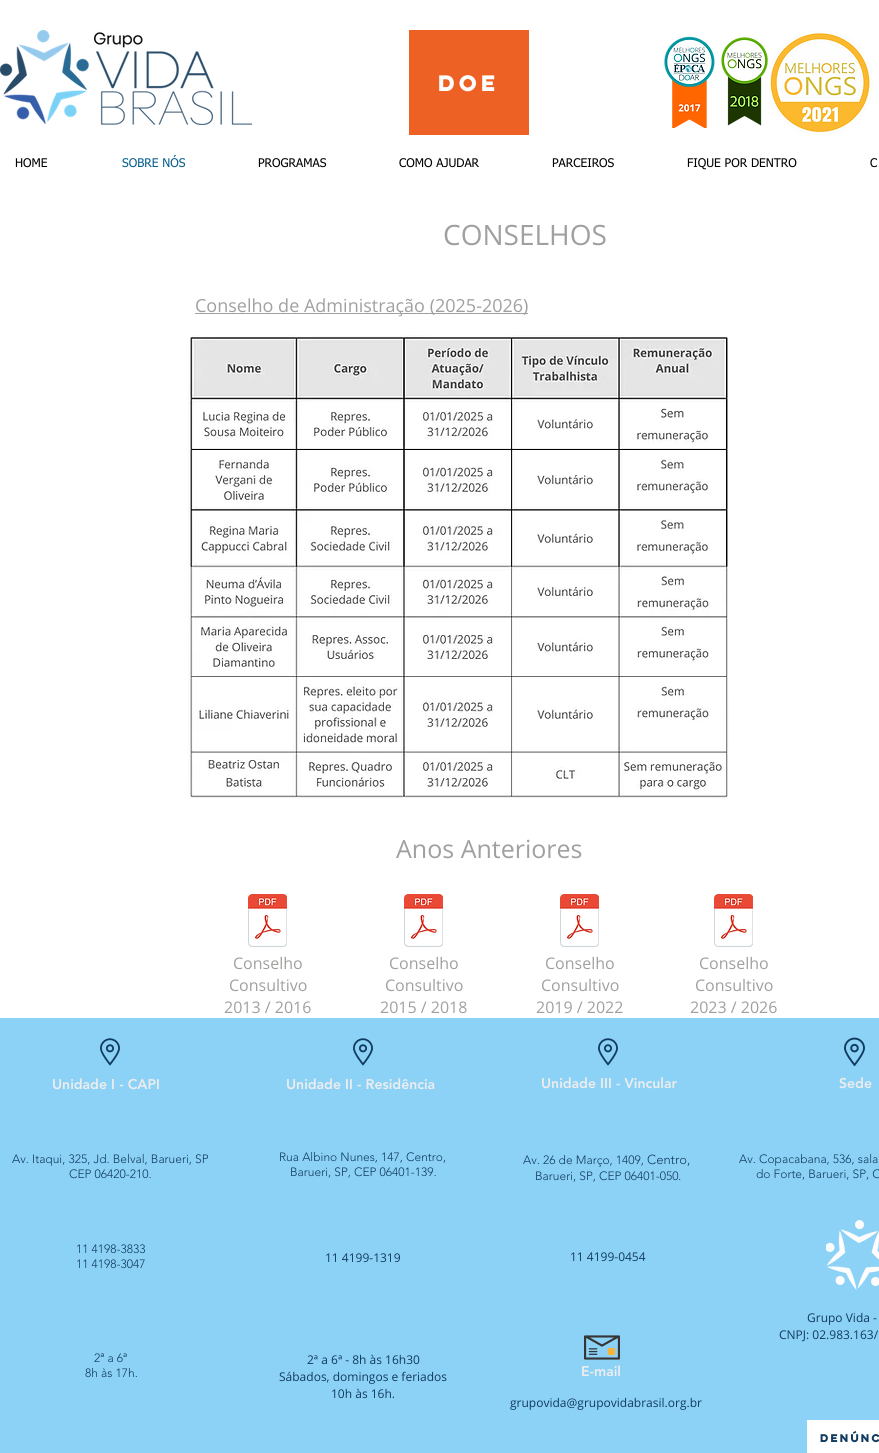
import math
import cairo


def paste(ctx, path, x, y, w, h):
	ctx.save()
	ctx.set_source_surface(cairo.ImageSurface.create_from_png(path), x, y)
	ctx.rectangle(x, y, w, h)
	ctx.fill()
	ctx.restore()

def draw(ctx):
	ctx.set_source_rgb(1, 1, 1)
	ctx.paint()
	paste(ctx, 'media/1.png', 0, 30, 252, 95)
	ctx.set_source_rgb(0.929, 0.38, 0.141)
	ctx.rectangle(409, 30, 120, 105)
	ctx.fill()
	ctx.select_font_face('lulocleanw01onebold', cairo.FONT_SLANT_NORMAL, cairo.FONT_WEIGHT_BOLD)
	ctx.set_font_size(20)
	ctx.set_source_rgb(1, 1, 1)
	ctx.move_to(438, 91)
	ctx.show_text('Doe')
	paste(ctx, 'media/2.png', 664, 36, 51, 92)
	paste(ctx, 'media/3.png', 721, 37, 47, 89)
	paste(ctx, 'media/4.png', 769, 31, 103, 103)
	ctx.select_font_face('tahoma')
	ctx.set_font_size(12)
	ctx.set_source_rgb(0, 0, 0)
	ctx.move_to(15, 167)
	ctx.show_text('HOME')
	ctx.set_source_rgb(0.02, 0.373, 0.561)
	ctx.move_to(122, 167)
	ctx.show_text('SOBRE NÓS')
	ctx.set_source_rgb(0, 0, 0)
	for x, y, s in [
		(258, 167, 'PROGRAMAS'),
		(399, 167, 'COMO AJUDAR'),
		(552, 167, 'PARCEIROS'),
		(687, 167, 'FIQUE POR DENTRO'),
		(870, 167, 'C'),
	]:
		ctx.move_to(x, y)
		ctx.show_text(s)
	ctx.select_font_face('Open Sans')
	ctx.set_font_size(28)
	ctx.set_source_rgb(0.627, 0.627, 0.624)
	ctx.move_to(443, 245)
	ctx.show_text('CONSELHOS')
	ctx.rectangle(195, 313, 333, 1)
	ctx.fill()
	ctx.set_font_size(18)
	ctx.move_to(195, 312)
	ctx.show_text('Conselho de Administração (2025-2026)')
	paste(ctx, 'media/5.png', 188, 335, 541, 464)
	ctx.set_font_size(25)
	ctx.move_to(396, 858)
	ctx.show_text('Anos Anteriores')
	paste(ctx, 'media/6.png', 248, 894, 39, 53)
	ctx.set_font_size(16)
	for x, y, s in [
		(233, 969, 'Conselho'),
		(229, 991, 'Consultivo'),
		(224, 1013, '2013 / 2016'),
	]:
		ctx.move_to(x, y)
		ctx.show_text(s)
	paste(ctx, 'media/6.png', 404, 894, 39, 53)
	for x, y, s in [
		(389, 969, 'Conselho'),
		(385, 991, 'Consultivo'),
		(380, 1013, '2015 / 2018'),
	]:
		ctx.move_to(x, y)
		ctx.show_text(s)
	paste(ctx, 'media/6.png', 560, 894, 39, 53)
	for x, y, s in [
		(545, 969, 'Conselho'),
		(541, 991, 'Consultivo'),
		(536, 1013, '2019 / 2022'),
	]:
		ctx.move_to(x, y)
		ctx.show_text(s)
	paste(ctx, 'media/6.png', 714, 894, 39, 53)
	for x, y, s in [
		(699, 969, 'Conselho'),
		(695, 991, 'Consultivo'),
		(690, 1013, '2023 / 2026'),
	]:
		ctx.move_to(x, y)
		ctx.show_text(s)
	ctx.set_source_rgb(0.549, 0.824, 0.965)
	ctx.rectangle(0, 1018, 879, 435)
	ctx.fill()
	paste(ctx, 'media/7.png', 100, 1038, 20, 28)
	paste(ctx, 'media/7.png', 353, 1038, 20, 28)
	paste(ctx, 'media/7.png', 598, 1038, 20, 28)
	paste(ctx, 'media/8.png', 844, 1037, 21, 30)
	ctx.select_font_face('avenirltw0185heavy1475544 Black')
	ctx.set_font_size(14)
	ctx.set_source_rgb(0.929, 0.929, 0.929)
	for x, y, s in [
		(52, 1089, 'Unidade I - CAPI'),
		(286, 1089, 'Unidade II - Residência'),
		(541, 1088, 'Unidade III - Vincular'),
		(839, 1088, 'Sede'),
	]:
		ctx.move_to(x, y)
		ctx.show_text(s)
	ctx.select_font_face('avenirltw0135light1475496 Light')
	ctx.set_font_size(12)
	ctx.set_source_rgb(0.067, 0.231, 0.369)
	for x, y, s in [
		(12, 1163, 'Av. Itaqui, 325, Jd. Belval, Barueri, SP'),
		(69, 1178, 'CEP 06420-210.'),
		(279, 1161, 'Rua Albino Nunes, 147, Centro,'),
		(290, 1176, 'Barueri, SP, CEP 06401-139.'),
		(523, 1164, 'Av. 26 de Março, 1409,'),
	]:
		ctx.move_to(x, y)
		ctx.show_text(s)
	ctx.set_font_size(13)
	ctx.move_to(647, 1164)
	ctx.show_text('Centro,')
	ctx.set_font_size(12)
	ctx.move_to(535, 1180)
	ctx.show_text('Barueri, SP, CEP 06401-050')
	ctx.set_font_size(13)
	ctx.move_to(678, 1180)
	ctx.show_text('.')
	ctx.set_font_size(12)
	for x, y, s in [
		(739, 1163, 'Av. Copacabana, 536, sala'),
		(756, 1178, 'do Forte, Barueri, SP, C'),
		(76, 1253, '11 4198-3833'),
		(76, 1268, '11 4198-3047'),
	]:
		ctx.move_to(x, y)
		ctx.show_text(s)
	ctx.select_font_face('Open Sans')
	ctx.move_to(325, 1262)
	ctx.show_text('11 4199-1319')
	paste(ctx, 'media/9.png', 584, 1335, 36, 25)
	ctx.select_font_face('avenirltw0135light1475496 Light')
	ctx.move_to(94, 1362)
	ctx.show_text('2ª a 6ª')
	ctx.move_to(85, 1377)
	ctx.show_text('8h às 17h.')
	ctx.select_font_face('Open Sans')
	for x, y, s in [
		(307, 1364, '2ª a 6ª - 8h às 16h30'),
		(279, 1381, 'Sábados, domingos e feriados'),
		(331, 1398, '10h às 16h.'),
	]:
		ctx.move_to(x, y)
		ctx.show_text(s)
	ctx.select_font_face('avenirltw0185heavy1475544 Black')
	ctx.set_font_size(14)
	ctx.set_source_rgb(0.929, 0.929, 0.929)
	ctx.move_to(581, 1376)
	ctx.show_text('E-mail')
	ctx.select_font_face('Open Sans')
	ctx.set_font_size(12)
	ctx.set_source_rgb(0.067, 0.231, 0.369)
	ctx.move_to(510, 1407)
	ctx.show_text('grupovida@grupovidabrasil.org.br')
	ctx.move_to(570, 1261)
	ctx.show_text('11 4199-0454')
	paste(ctx, 'media/10.png', 826, 1220, 53, 70)
	ctx.move_to(807, 1322)
	ctx.show_text('Grupo Vida -')
	ctx.move_to(779, 1339)
	ctx.show_text('CNPJ: 02.983.163/')
	ctx.set_source_rgb(1, 1, 1)
	ctx.rectangle(807, 1420, 72, 33)
	ctx.fill()
	ctx.select_font_face('lulocleanw01onebold', cairo.FONT_SLANT_NORMAL, cairo.FONT_WEIGHT_BOLD)
	ctx.set_font_size(10)
	ctx.set_source_rgb(0.067, 0.231, 0.369)
	ctx.move_to(820, 1442)
	ctx.show_text('Denúnc')


surface = cairo.ImageSurface(cairo.FORMAT_RGB24, 879, 1453)
ctx = cairo.Context(surface)
options = cairo.FontOptions()
options.set_hint_metrics(cairo.HINT_METRICS_OFF)
options.set_hint_style(cairo.HINT_STYLE_NONE)
ctx.set_font_options(options)
ctx.set_miter_limit(4)
draw(ctx)
surface.write_to_png('image.png')
